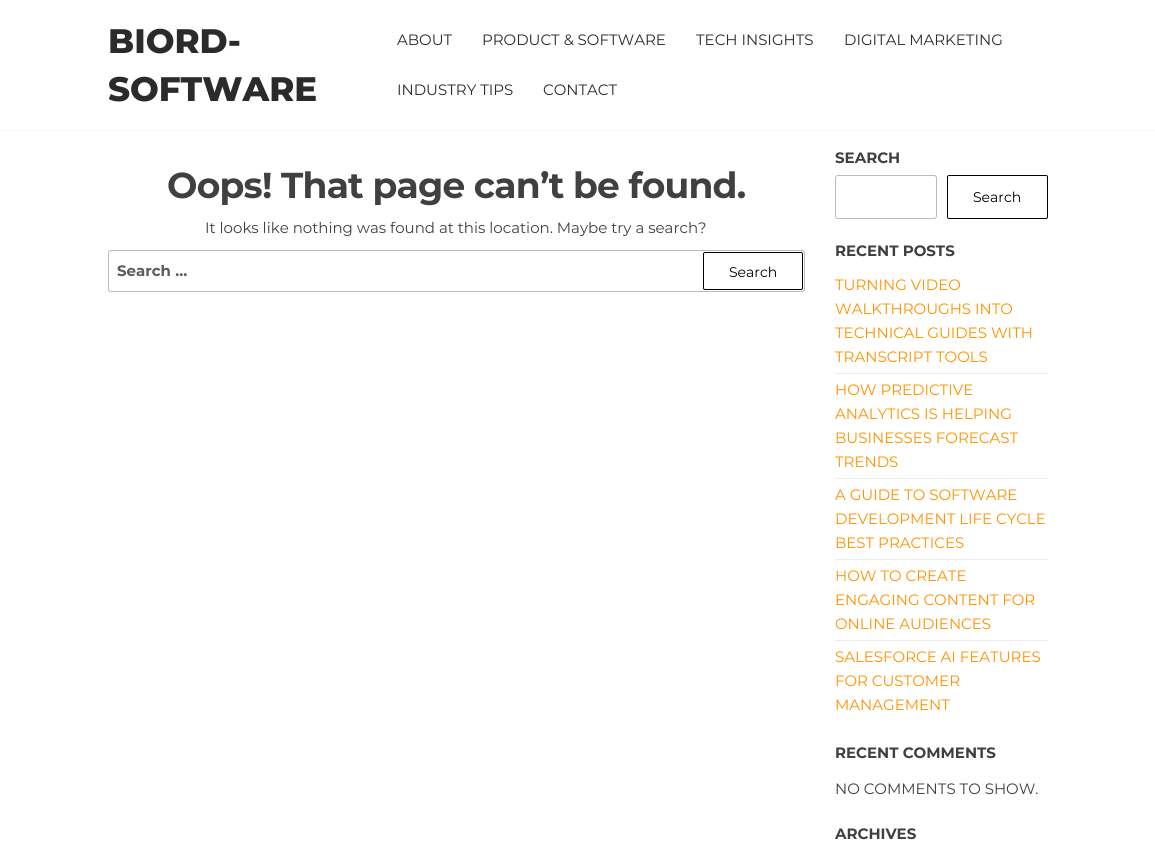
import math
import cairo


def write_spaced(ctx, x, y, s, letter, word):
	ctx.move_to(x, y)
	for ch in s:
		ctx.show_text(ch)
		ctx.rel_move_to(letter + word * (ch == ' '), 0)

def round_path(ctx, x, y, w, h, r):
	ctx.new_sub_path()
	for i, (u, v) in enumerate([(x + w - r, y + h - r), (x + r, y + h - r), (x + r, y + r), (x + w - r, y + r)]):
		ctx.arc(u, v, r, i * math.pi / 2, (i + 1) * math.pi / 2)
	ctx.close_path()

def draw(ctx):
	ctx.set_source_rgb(1, 1, 1)
	ctx.paint()
	ctx.set_source_rgb(0.965, 0.965, 0.965)
	ctx.rectangle(0, 130, 1155, 1)
	ctx.fill()
	ctx.select_font_face('Montserrat ExtraBold')
	ctx.set_font_size(34)
	ctx.set_source_rgb(0.169, 0.169, 0.169)
	ctx.move_to(108, 53)
	ctx.show_text('BIORD-')
	ctx.move_to(108, 101)
	ctx.show_text('SOFTWARE')
	ctx.select_font_face('Montserrat')
	ctx.set_font_size(15)
	for x, y, s in [
		(397, 45, 'ABOUT'),
		(482, 45, 'PRODUCT & SOFTWARE'),
		(696, 45, 'TECH INSIGHTS'),
		(844, 45, 'DIGITAL MARKETING'),
		(397, 95, 'INDUSTRY TIPS'),
		(543, 95, 'CONTACT'),
	]:
		ctx.move_to(x, y)
		ctx.show_text(s)
	ctx.select_font_face('Montserrat', cairo.FONT_SLANT_NORMAL, cairo.FONT_WEIGHT_BOLD)
	ctx.set_font_size(36)
	ctx.set_source_rgb(0.251, 0.251, 0.251)
	write_spaced(ctx, 167, 198, 'Oops! That page can’t be found.', -0.75, 0)
	ctx.select_font_face('Montserrat')
	ctx.set_font_size(15)
	ctx.move_to(205, 233)
	ctx.show_text('It looks like nothing was found at this location. Maybe try a search?')
	round_path(ctx, 108.5, 250.5, 696, 41, 2.5)
	ctx.set_source_rgb(0.733, 0.733, 0.733)
	ctx.set_line_width(1)
	ctx.stroke()
	ctx.select_font_face('Montserrat', cairo.FONT_SLANT_NORMAL, cairo.FONT_WEIGHT_BOLD)
	ctx.set_source_rgb(0.357, 0.357, 0.357)
	ctx.move_to(117, 276)
	ctx.show_text('Search …')
	round_path(ctx, 703.5, 252.5, 99, 37, 1.5)
	ctx.set_source_rgb(0, 0, 0)
	ctx.stroke()
	ctx.select_font_face('Montserrat')
	ctx.set_font_size(14)
	ctx.move_to(729, 277)
	ctx.show_text('Search')
	ctx.select_font_face('Montserrat', cairo.FONT_SLANT_NORMAL, cairo.FONT_WEIGHT_BOLD)
	ctx.set_font_size(15)
	ctx.set_source_rgb(0.251, 0.251, 0.251)
	ctx.move_to(835, 163)
	ctx.show_text('SEARCH')
	round_path(ctx, 835.5, 175.5, 101, 43, 2.5)
	ctx.set_source_rgb(0.733, 0.733, 0.733)
	ctx.stroke()
	round_path(ctx, 947.5, 175.5, 100, 43, 1.5)
	ctx.set_source_rgb(0, 0, 0)
	ctx.stroke()
	ctx.select_font_face('Montserrat')
	ctx.set_font_size(14)
	ctx.move_to(973, 202)
	ctx.show_text('Search')
	ctx.select_font_face('Montserrat', cairo.FONT_SLANT_NORMAL, cairo.FONT_WEIGHT_BOLD)
	ctx.set_font_size(15)
	ctx.set_source_rgb(0.251, 0.251, 0.251)
	ctx.move_to(835, 256)
	ctx.show_text('RECENT POSTS')
	ctx.set_source_rgb(0.922, 0.922, 0.922)
	ctx.rectangle(835, 373, 213, 1)
	ctx.fill()
	ctx.select_font_face('Montserrat')
	ctx.set_source_rgb(1, 0.573, 0)
	for x, y, s in [
		(835, 290, 'TURNING VIDEO'),
		(835, 314, 'WALKTHROUGHS INTO'),
		(835, 338, 'TECHNICAL GUIDES WITH'),
		(835, 362, 'TRANSCRIPT TOOLS'),
	]:
		ctx.move_to(x, y)
		ctx.show_text(s)
	ctx.set_source_rgb(0.922, 0.922, 0.922)
	ctx.rectangle(835, 478, 213, 1)
	ctx.fill()
	ctx.set_source_rgb(1, 0.573, 0)
	for x, y, s in [
		(835, 395, 'HOW PREDICTIVE'),
		(835, 419, 'ANALYTICS IS HELPING'),
		(835, 443, 'BUSINESSES FORECAST'),
		(835, 467, 'TRENDS'),
	]:
		ctx.move_to(x, y)
		ctx.show_text(s)
	ctx.set_source_rgb(0.922, 0.922, 0.922)
	ctx.rectangle(835, 559, 213, 1)
	ctx.fill()
	ctx.set_source_rgb(1, 0.573, 0)
	for x, y, s in [
		(835, 500, 'A GUIDE TO SOFTWARE'),
		(835, 524, 'DEVELOPMENT LIFE CYCLE'),
		(835, 548, 'BEST PRACTICES'),
	]:
		ctx.move_to(x, y)
		ctx.show_text(s)
	ctx.set_source_rgb(0.922, 0.922, 0.922)
	ctx.rectangle(835, 640, 213, 1)
	ctx.fill()
	ctx.set_source_rgb(1, 0.573, 0)
	for x, y, s in [
		(835, 581, 'HOW TO CREATE'),
		(835, 605, 'ENGAGING CONTENT FOR'),
		(835, 629, 'ONLINE AUDIENCES'),
		(835, 662, 'SALESFORCE AI FEATURES'),
		(835, 686, 'FOR CUSTOMER'),
		(835, 710, 'MANAGEMENT'),
	]:
		ctx.move_to(x, y)
		ctx.show_text(s)
	ctx.select_font_face('Montserrat', cairo.FONT_SLANT_NORMAL, cairo.FONT_WEIGHT_BOLD)
	ctx.set_source_rgb(0.251, 0.251, 0.251)
	ctx.move_to(835, 758)
	ctx.show_text('RECENT COMMENTS')
	ctx.select_font_face('Montserrat')
	ctx.move_to(835, 794)
	ctx.show_text('NO COMMENTS TO SHOW.')
	ctx.select_font_face('Montserrat', cairo.FONT_SLANT_NORMAL, cairo.FONT_WEIGHT_BOLD)
	ctx.move_to(835, 839)
	ctx.show_text('ARCHIVES')


surface = cairo.ImageSurface(cairo.FORMAT_RGB24, 1155, 867)
ctx = cairo.Context(surface)
options = cairo.FontOptions()
options.set_hint_metrics(cairo.HINT_METRICS_OFF)
options.set_hint_style(cairo.HINT_STYLE_NONE)
ctx.set_font_options(options)
ctx.set_miter_limit(4)
draw(ctx)
surface.write_to_png('image.png')
